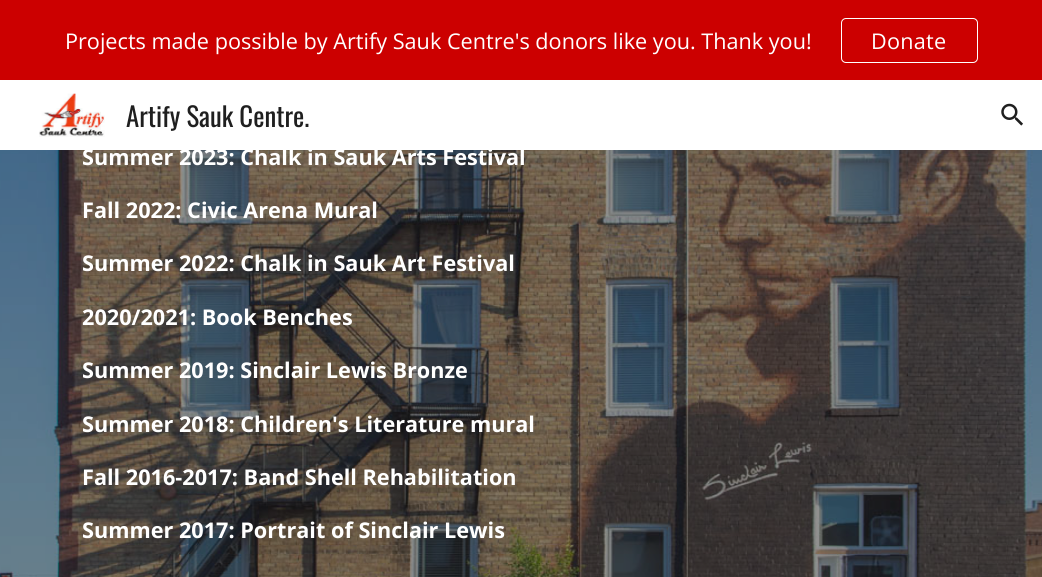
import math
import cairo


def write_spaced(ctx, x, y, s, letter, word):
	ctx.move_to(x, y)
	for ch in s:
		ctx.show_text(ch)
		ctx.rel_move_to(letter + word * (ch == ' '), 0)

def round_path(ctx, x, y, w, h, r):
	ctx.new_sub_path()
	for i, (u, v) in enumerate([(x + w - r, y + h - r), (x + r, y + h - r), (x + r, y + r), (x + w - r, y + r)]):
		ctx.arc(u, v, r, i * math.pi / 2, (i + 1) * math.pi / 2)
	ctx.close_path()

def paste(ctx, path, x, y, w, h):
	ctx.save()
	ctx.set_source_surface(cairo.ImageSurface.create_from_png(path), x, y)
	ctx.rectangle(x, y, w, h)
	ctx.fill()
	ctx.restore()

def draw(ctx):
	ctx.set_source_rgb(1, 1, 1)
	ctx.paint()
	ctx.set_source_rgb(0.8, 0, 0)
	ctx.rectangle(0, 0, 1042, 80)
	ctx.fill()
	ctx.select_font_face('Open Sans')
	ctx.set_font_size(21.65)
	ctx.set_source_rgb(1, 1, 1)
	ctx.move_to(65, 49)
	ctx.show_text('Projects made possible by Artify Sauk Centre\'s donors like you. Thank you!')
	round_path(ctx, 841.5, 18.5, 136, 44, 4.5)
	ctx.set_line_width(1)
	ctx.stroke()
	write_spaced(ctx, 871, 49, 'Donate', 0.25, 0)
	paste(ctx, 'media/1.png', 39, 93, 66, 44)
	ctx.select_font_face('Oswald')
	ctx.set_font_size(26.75)
	ctx.set_source_rgb(0.122, 0.122, 0.122)
	ctx.move_to(126, 127)
	ctx.show_text('Artify Sauk Centre.')
	paste(ctx, 'media/2.png', 1001, 103, 22, 23)
	paste(ctx, 'media/3.png', 0, 150, 1042, 427)
	ctx.select_font_face('Open Sans', cairo.FONT_SLANT_NORMAL, cairo.FONT_WEIGHT_BOLD)
	ctx.set_font_size(21.65)
	ctx.set_source_rgb(1, 1, 1)
	for x, y, s in [
		(82, 165, 'Summer 2023: Chalk in Sauk Arts Festival'),
		(82, 218, 'Fall 2022: Civic Arena Mural'),
		(82, 271, 'Summer 2022: Chalk in Sauk Art Festival'),
		(82, 325, '2020/2021: Book Benches'),
		(82, 378, 'Summer 2019: Sinclair Lewis Bronze'),
		(82, 432, 'Summer 2018: Children\'s Literature mural'),
		(82, 485, 'Fall 2016-2017: Band Shell Rehabilitation'),
		(82, 538, 'Summer 2017: Portrait of Sinclair Lewis'),
	]:
		ctx.move_to(x, y)
		ctx.show_text(s)


surface = cairo.ImageSurface(cairo.FORMAT_RGB24, 1042, 577)
ctx = cairo.Context(surface)
options = cairo.FontOptions()
options.set_hint_metrics(cairo.HINT_METRICS_OFF)
options.set_hint_style(cairo.HINT_STYLE_NONE)
ctx.set_font_options(options)
ctx.set_miter_limit(4)
draw(ctx)
surface.write_to_png('image.png')
